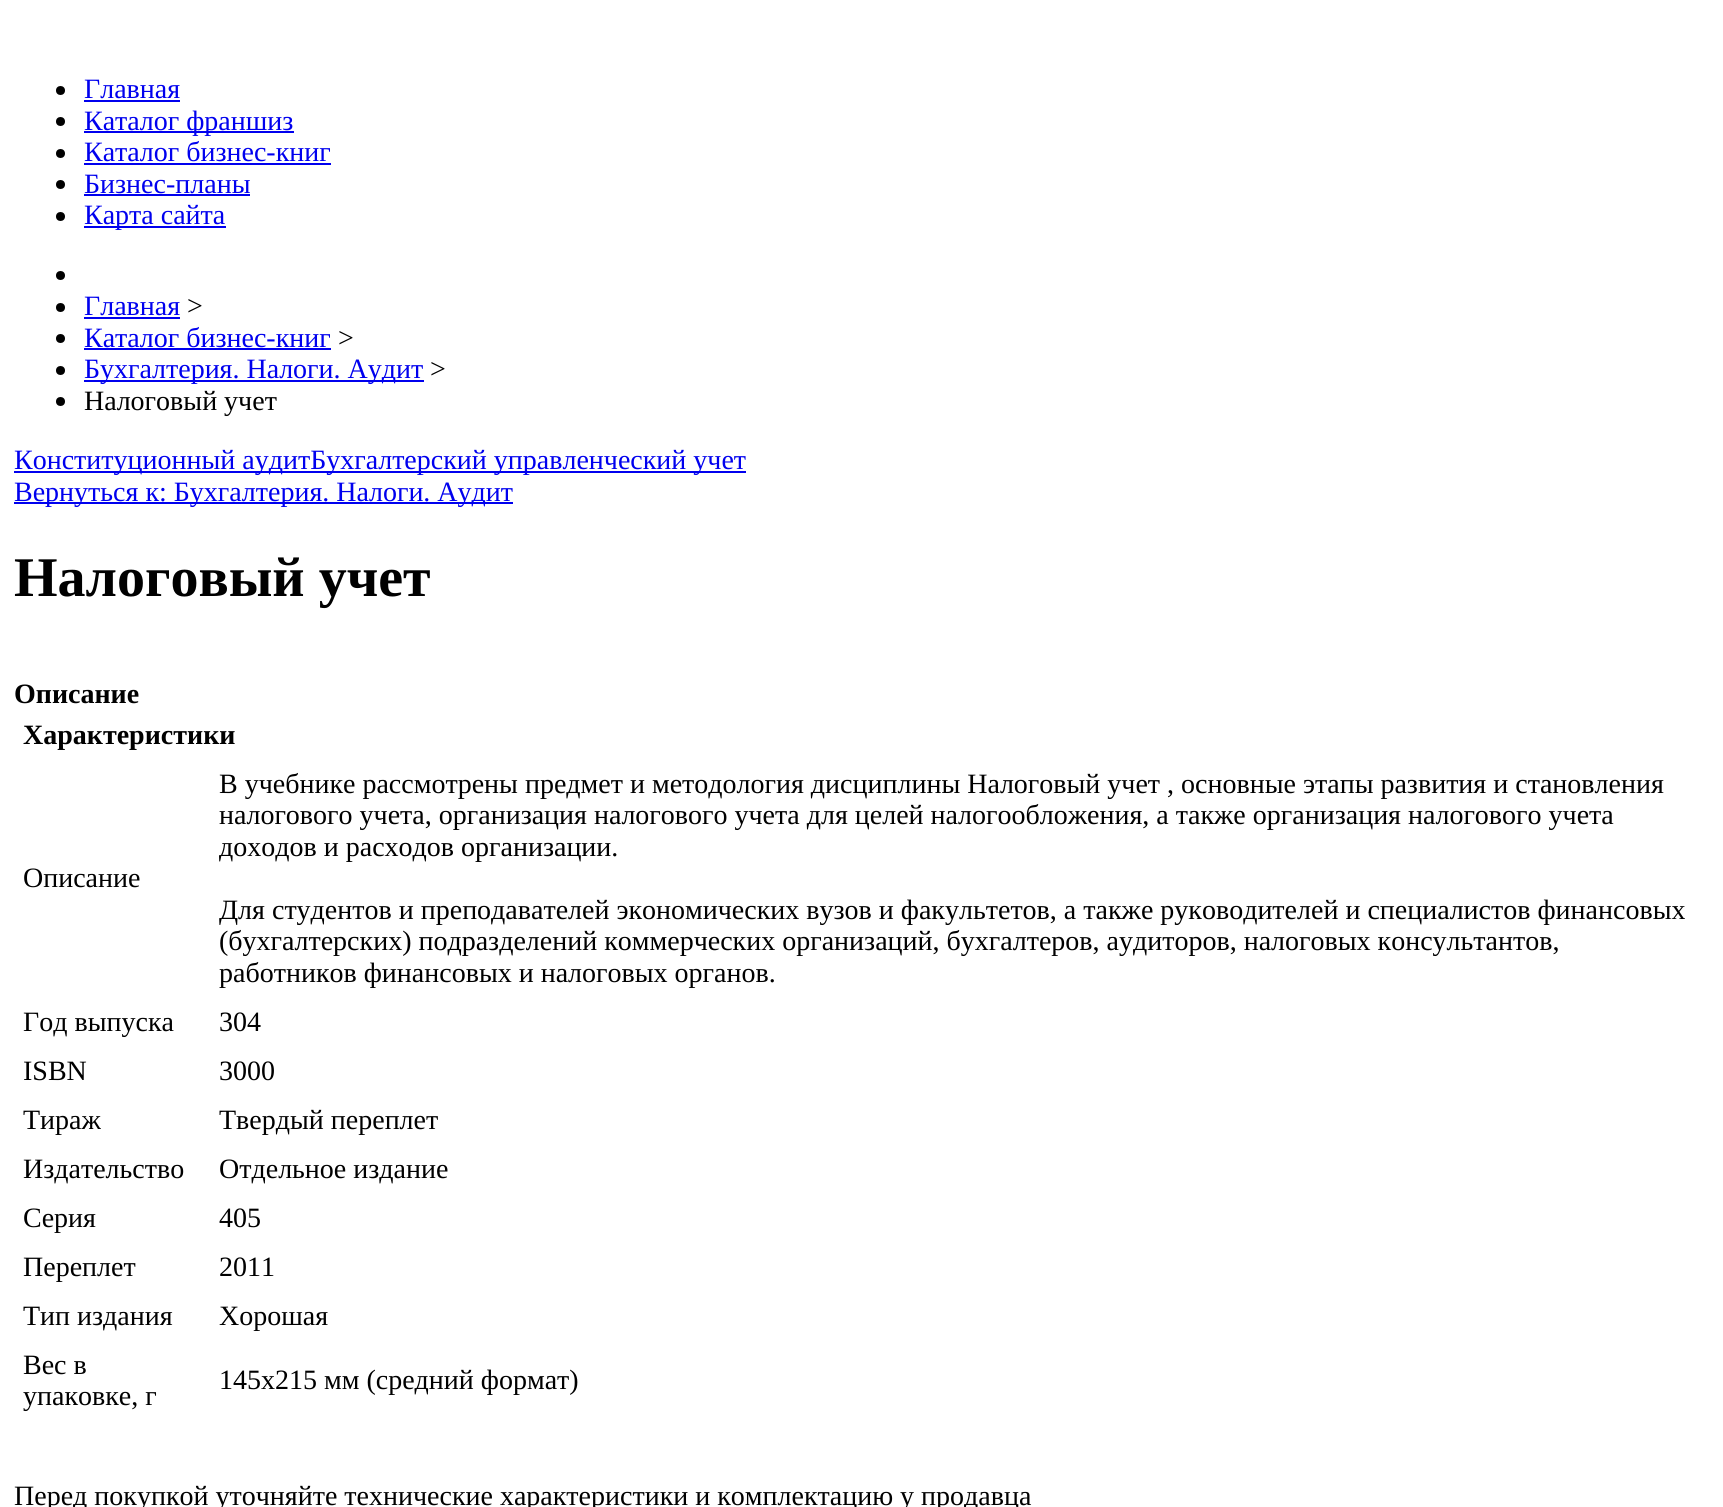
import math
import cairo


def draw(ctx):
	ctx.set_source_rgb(1, 1, 1)
	ctx.paint()
	ctx.set_source_rgb(0, 0, 0)
	ctx.arc(60.5, 90.5, 4.5, 0, 2 * math.pi)
	ctx.fill()
	ctx.select_font_face('Liberation Serif')
	ctx.set_font_size(28)
	ctx.set_source_rgb(0, 0, 0.933)
	ctx.move_to(84, 98)
	ctx.show_text('Главная')
	ctx.rectangle(84, 100, 96, 2)
	ctx.fill()
	ctx.set_source_rgb(0, 0, 0)
	ctx.arc(60.5, 121.5, 4.5, 0, 2 * math.pi)
	ctx.fill()
	ctx.set_source_rgb(0, 0, 0.933)
	ctx.rectangle(84, 131, 210, 2)
	ctx.fill()
	ctx.move_to(84, 130)
	ctx.show_text('Каталог франшиз')
	ctx.set_source_rgb(0, 0, 0)
	ctx.new_path()
	ctx.arc(60.5, 153.5, 4.5, 0, 2 * math.pi)
	ctx.fill()
	ctx.set_source_rgb(0, 0, 0.933)
	ctx.move_to(84, 161)
	ctx.show_text('Каталог бизнес-книг')
	ctx.rectangle(84, 163, 247, 2)
	ctx.fill()
	ctx.set_source_rgb(0, 0, 0)
	ctx.arc(60.5, 184.5, 4.5, 0, 2 * math.pi)
	ctx.fill()
	ctx.set_source_rgb(0, 0, 0.933)
	ctx.move_to(84, 193)
	ctx.show_text('Бизнес-планы')
	ctx.rectangle(84, 194, 166, 2)
	ctx.fill()
	ctx.set_source_rgb(0, 0, 0)
	ctx.arc(60.5, 216.5, 4.5, 0, 2 * math.pi)
	ctx.fill()
	ctx.set_source_rgb(0, 0, 0.933)
	ctx.rectangle(84, 226, 142, 2)
	ctx.fill()
	ctx.move_to(84, 224)
	ctx.show_text('Карта сайта')
	ctx.set_source_rgb(0, 0, 0)
	ctx.new_path()
	ctx.arc(60.5, 275.5, 4.5, 0, 2 * math.pi)
	ctx.fill()
	ctx.arc(60.5, 307.5, 4.5, 0, 2 * math.pi)
	ctx.fill()
	ctx.set_source_rgb(0, 0, 0.933)
	ctx.move_to(84, 315)
	ctx.show_text('Главная')
	ctx.rectangle(84, 317, 96, 2)
	ctx.fill()
	ctx.set_source_rgb(0, 0, 0)
	ctx.move_to(187, 315)
	ctx.show_text('>')
	ctx.new_path()
	ctx.arc(60.5, 338.5, 4.5, 0, 2 * math.pi)
	ctx.fill()
	ctx.set_source_rgb(0, 0, 0.933)
	ctx.move_to(84, 347)
	ctx.show_text('Каталог бизнес-книг')
	ctx.rectangle(84, 348, 247, 2)
	ctx.fill()
	ctx.set_source_rgb(0, 0, 0)
	ctx.move_to(338, 347)
	ctx.show_text('>')
	ctx.new_path()
	ctx.arc(60.5, 370.5, 4.5, 0, 2 * math.pi)
	ctx.fill()
	ctx.set_source_rgb(0, 0, 0.933)
	ctx.rectangle(84, 380, 340, 2)
	ctx.fill()
	ctx.move_to(84, 378)
	ctx.show_text('Бухгалтерия. Налоги. Аудит')
	ctx.set_source_rgb(0, 0, 0)
	ctx.move_to(430, 378)
	ctx.show_text('>')
	ctx.new_path()
	ctx.arc(60.5, 401.5, 4.5, 0, 2 * math.pi)
	ctx.fill()
	ctx.move_to(84, 410)
	ctx.show_text('Налоговый учет')
	ctx.set_source_rgb(0, 0, 0.933)
	ctx.rectangle(14, 471, 732, 2)
	ctx.fill()
	ctx.move_to(14, 469)
	ctx.show_text('Конституционный аудитБухгалтерский управленческий учет')
	ctx.rectangle(14, 502, 499, 2)
	ctx.fill()
	ctx.move_to(14, 501)
	ctx.show_text('Вернуться к: Бухгалтерия. Налоги. Аудит')
	ctx.select_font_face('Liberation Serif', cairo.FONT_SLANT_NORMAL, cairo.FONT_WEIGHT_BOLD)
	ctx.set_font_size(56)
	ctx.set_source_rgb(0, 0, 0)
	ctx.move_to(14, 596)
	ctx.show_text('Налоговый учет')
	ctx.set_font_size(28)
	ctx.move_to(14, 703)
	ctx.show_text('Описание')
	ctx.move_to(23, 744)
	ctx.show_text('Характеристики')
	ctx.select_font_face('Liberation Serif')
	for x, y, s in [
		(23, 887, 'Описание'),
		(219, 793, 'В учебнике рассмотрены предмет и методология дисциплины Налоговый учет , основные этапы развития и становления'),
		(219, 824, 'налогового учета, организация налогового учета для целей налогообложения, а также организация налогового учета'),
		(219, 856, 'доходов и расходов организации.'),
		(219, 919, 'Для студентов и преподавателей экономических вузов и факультетов, а также руководителей и специалистов финансовых'),
		(219, 950, '(бухгалтерских) подразделений коммерческих организаций, бухгалтеров, аудиторов, налоговых консультантов,'),
		(219, 982, 'работников финансовых и налоговых органов.'),
		(23, 1031, 'Год выпуска'),
		(219, 1031, '304'),
		(23, 1080, 'ISBN'),
		(219, 1080, '3000'),
		(23, 1129, 'Тираж'),
		(219, 1129, 'Твердый переплет'),
		(23, 1178, 'Издательство'),
		(219, 1178, 'Отдельное издание'),
		(23, 1227, 'Серия'),
		(219, 1227, '405'),
		(23, 1276, 'Переплет'),
		(219, 1276, '2011'),
		(23, 1325, 'Тип издания'),
		(219, 1325, 'Хорошая'),
		(23, 1374, 'Вес в'),
		(23, 1405, 'упаковке, г'),
		(219, 1389, '145х215 мм (средний формат)'),
		(14, 1505, 'Перед покупкой уточняйте технические характеристики и комплектацию у продавца'),
	]:
		ctx.move_to(x, y)
		ctx.show_text(s)


surface = cairo.ImageSurface(cairo.FORMAT_RGB24, 1723, 1507)
ctx = cairo.Context(surface)
options = cairo.FontOptions()
options.set_hint_metrics(cairo.HINT_METRICS_OFF)
options.set_hint_style(cairo.HINT_STYLE_NONE)
ctx.set_font_options(options)
ctx.set_miter_limit(4)
draw(ctx)
surface.write_to_png('image.png')
